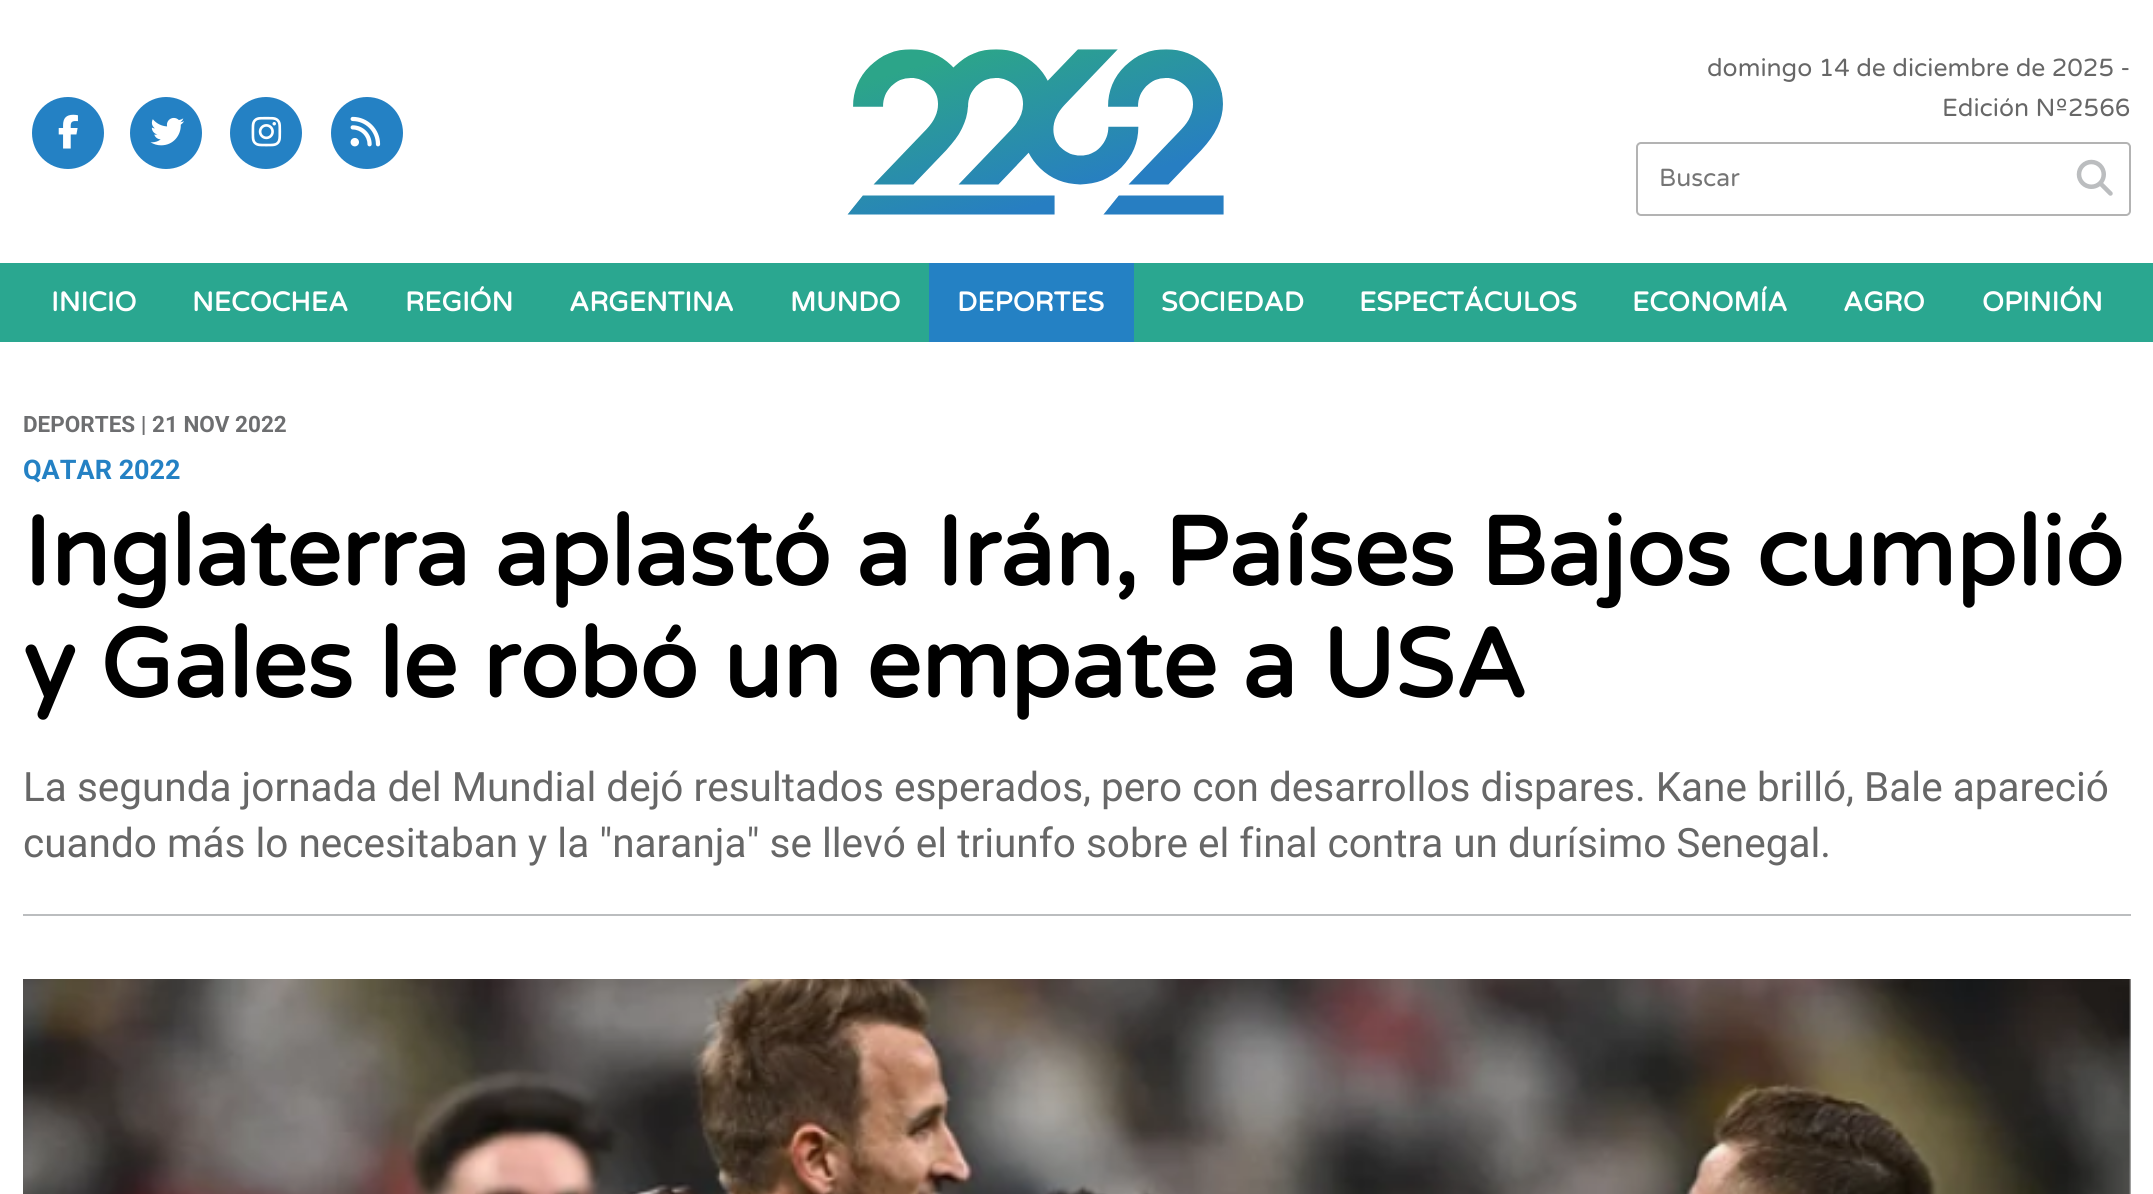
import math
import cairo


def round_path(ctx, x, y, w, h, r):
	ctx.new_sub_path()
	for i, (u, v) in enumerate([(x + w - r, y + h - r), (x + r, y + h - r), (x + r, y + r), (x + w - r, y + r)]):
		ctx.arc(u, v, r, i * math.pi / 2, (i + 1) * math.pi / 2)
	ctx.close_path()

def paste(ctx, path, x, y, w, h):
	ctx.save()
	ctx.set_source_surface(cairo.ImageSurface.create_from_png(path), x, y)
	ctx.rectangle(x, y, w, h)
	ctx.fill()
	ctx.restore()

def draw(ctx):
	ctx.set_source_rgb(1, 1, 1)
	ctx.paint()
	ctx.set_source_rgb(0.141, 0.506, 0.769)
	ctx.new_path()
	ctx.move_to(68, 169)
	ctx.curve_to(87, 169, 104, 153, 104, 133)
	ctx.curve_to(104, 113, 87, 97, 68, 97)
	ctx.curve_to(48, 97, 32, 113, 32, 133)
	ctx.curve_to(32, 153, 48, 169, 68, 169)
	ctx.close_path()
	ctx.fill()
	paste(ctx, 'media/1.png', 58, 114, 20, 35)
	ctx.new_path()
	ctx.move_to(166, 169)
	ctx.curve_to(186, 169, 202, 153, 202, 133)
	ctx.curve_to(202, 113, 186, 97, 166, 97)
	ctx.curve_to(147, 97, 130, 113, 130, 133)
	ctx.curve_to(130, 153, 147, 169, 166, 169)
	ctx.close_path()
	ctx.fill()
	paste(ctx, 'media/2.png', 150, 117, 34, 29)
	ctx.new_path()
	ctx.move_to(266, 169)
	ctx.curve_to(285, 169, 302, 153, 302, 133)
	ctx.curve_to(302, 113, 285, 97, 266, 97)
	ctx.curve_to(246, 97, 230, 113, 230, 133)
	ctx.curve_to(230, 153, 246, 169, 266, 169)
	ctx.close_path()
	ctx.fill()
	paste(ctx, 'media/3.png', 251, 116, 31, 31)
	ctx.new_path()
	ctx.move_to(367, 169)
	ctx.curve_to(387, 169, 403, 153, 403, 133)
	ctx.curve_to(403, 113, 387, 97, 367, 97)
	ctx.curve_to(347, 97, 331, 113, 331, 133)
	ctx.curve_to(331, 153, 347, 169, 367, 169)
	ctx.close_path()
	ctx.fill()
	paste(ctx, 'media/4.png', 350, 116, 31, 31)
	paste(ctx, 'media/5.png', 847, 49, 377, 166)
	ctx.select_font_face('Varela Round')
	ctx.set_font_size(24.75)
	ctx.set_source_rgb(0.404, 0.404, 0.404)
	ctx.move_to(1707, 76)
	ctx.show_text('domingo 14 de diciembre de 2025 -')
	ctx.move_to(1942, 116)
	ctx.show_text('Edición Nº2566')
	round_path(ctx, 1637, 143, 493, 72, 4)
	ctx.set_source_rgb(0.702, 0.702, 0.702)
	ctx.stroke()
	ctx.set_source_rgb(0.459, 0.459, 0.459)
	ctx.move_to(1659, 186)
	ctx.show_text('Buscar')
	paste(ctx, 'media/6.png', 2076, 159, 37, 37)
	ctx.set_source_rgb(0.165, 0.655, 0.565)
	ctx.rectangle(0, 263, 2153, 79)
	ctx.fill()
	ctx.select_font_face('Varela Round', cairo.FONT_SLANT_NORMAL, cairo.FONT_WEIGHT_BOLD)
	ctx.set_font_size(27)
	ctx.set_source_rgb(1, 1, 1)
	for x, y, s in [
		(51, 311, 'INICIO'),
		(192, 311, 'NECOCHEA'),
		(405, 311, 'REGIÓN'),
		(569, 311, 'ARGENTINA'),
		(790, 311, 'MUNDO'),
	]:
		ctx.move_to(x, y)
		ctx.show_text(s)
	ctx.set_source_rgb(0.141, 0.506, 0.769)
	ctx.rectangle(929, 263, 205, 79)
	ctx.fill()
	ctx.set_source_rgb(1, 1, 1)
	for x, y, s in [
		(957, 311, 'DEPORTES'),
		(1161, 311, 'SOCIEDAD'),
		(1359, 311, 'ESPECTÁCULOS'),
		(1632, 311, 'ECONOMÍA'),
		(1843, 311, 'AGRO'),
		(1982, 311, 'OPINIÓN'),
	]:
		ctx.move_to(x, y)
		ctx.show_text(s)
	ctx.select_font_face('Roboto', cairo.FONT_SLANT_NORMAL, cairo.FONT_WEIGHT_BOLD)
	ctx.set_font_size(22.5)
	ctx.set_source_rgb(0.427, 0.431, 0.439)
	ctx.move_to(23, 432)
	ctx.show_text('DEPORTES | 21 NOV 2022')
	ctx.set_font_size(27)
	ctx.set_source_rgb(0.141, 0.506, 0.769)
	ctx.move_to(23, 479)
	ctx.show_text('QATAR 2022')
	ctx.select_font_face('Varela Round', cairo.FONT_SLANT_NORMAL, cairo.FONT_WEIGHT_BOLD)
	ctx.set_font_size(96.75)
	ctx.set_source_rgb(0, 0, 0)
	ctx.move_to(23, 585)
	ctx.show_text('Inglaterra aplastó a Irán, Países Bajos cumplió')
	ctx.move_to(23, 697)
	ctx.show_text('y Gales le robó un empate a USA')
	ctx.select_font_face('Roboto')
	ctx.set_font_size(40.5)
	ctx.set_source_rgb(0.404, 0.404, 0.404)
	ctx.move_to(23, 801)
	ctx.show_text('La segunda jornada del Mundial dejó resultados esperados, pero con desarrollos dispares. Kane brilló, Bale apareció')
	ctx.move_to(23, 857)
	ctx.show_text('cuando más lo necesitaban y la "naranja" se llevó el triunfo sobre el final contra un durísimo Senegal.')
	ctx.set_source_rgb(0.733, 0.741, 0.749)
	ctx.rectangle(23, 914, 2108, 2)
	ctx.fill()
	paste(ctx, 'media/7.png', 23, 979, 2108, 215)


surface = cairo.ImageSurface(cairo.FORMAT_RGB24, 2153, 1194)
ctx = cairo.Context(surface)
options = cairo.FontOptions()
options.set_hint_metrics(cairo.HINT_METRICS_OFF)
options.set_hint_style(cairo.HINT_STYLE_NONE)
ctx.set_font_options(options)
ctx.set_miter_limit(4)
draw(ctx)
surface.write_to_png('image.png')
